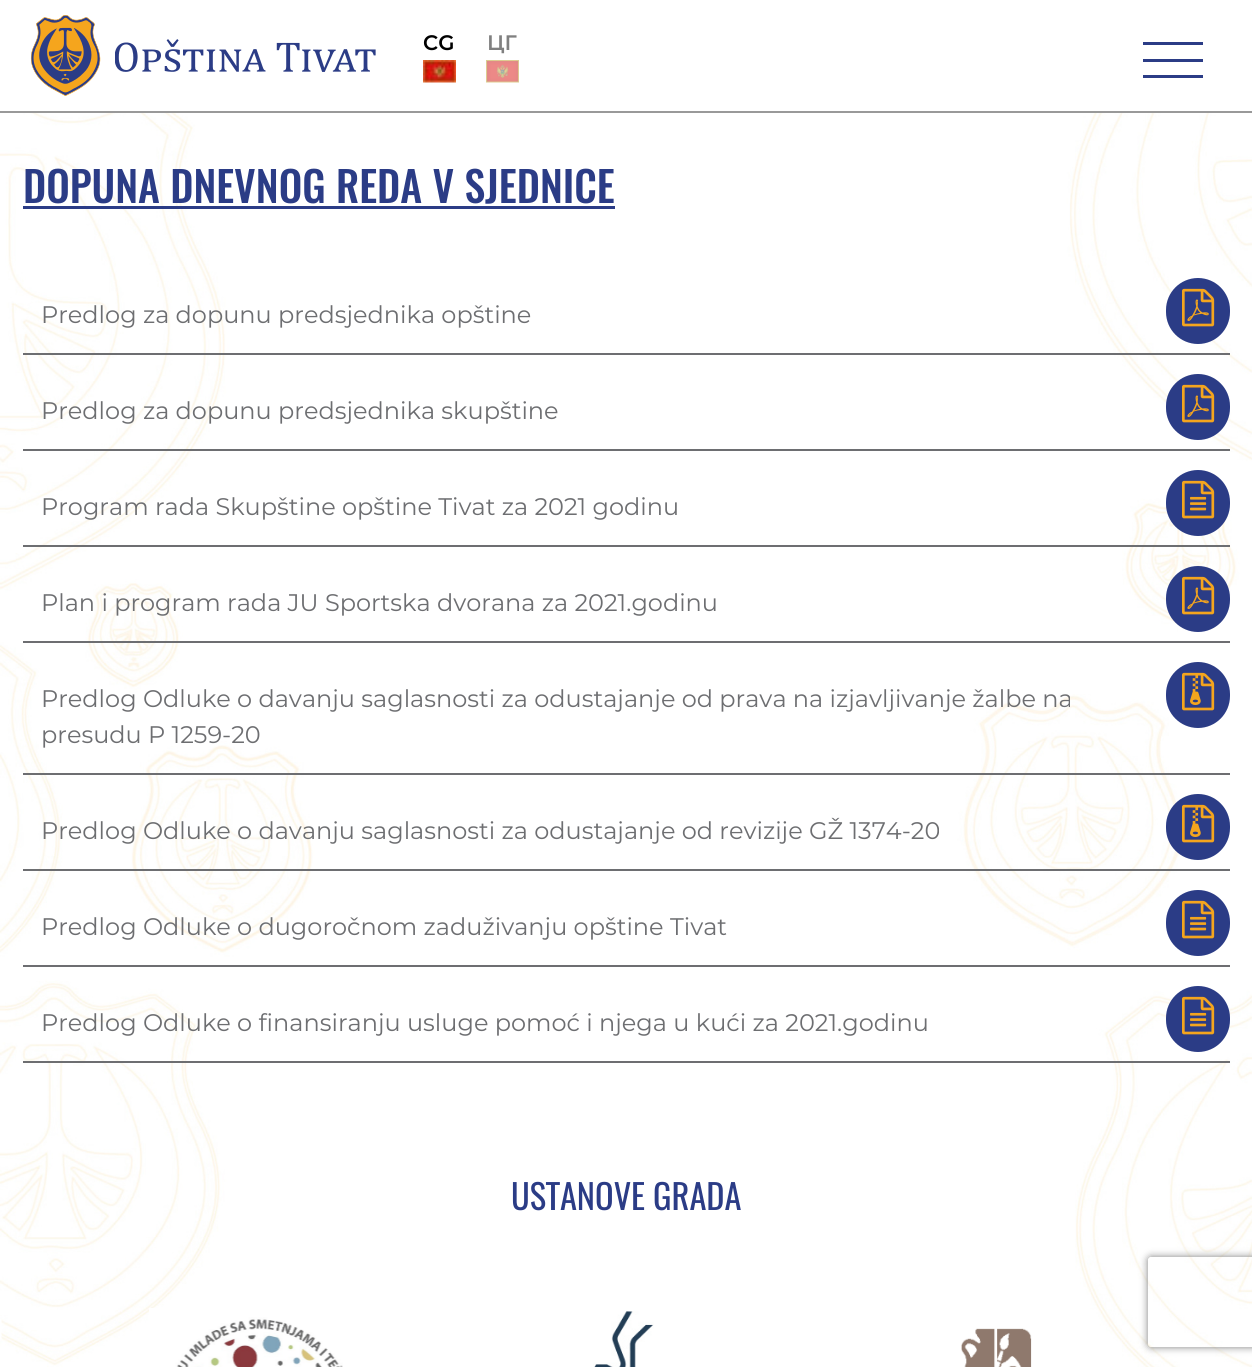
import math
import cairo


def round_path(ctx, x, y, w, h, r):
	ctx.new_sub_path()
	for i, (u, v) in enumerate([(x + w - r, y + h - r), (x + r, y + h - r), (x + r, y + r), (x + w - r, y + r)]):
		ctx.arc(u, v, r, i * math.pi / 2, (i + 1) * math.pi / 2)
	ctx.close_path()

def blur_box(ctx, x, y, w, h, r, blur, alpha):
	ctx.push_group_with_content(cairo.CONTENT_ALPHA)
	ctx.set_operator(cairo.OPERATOR_SOURCE)
	for i in range(15, -16, -2):
		e = blur * i / 6
		if min(w, h) + 2 * e > 0:
			ctx.set_source_rgba(0, 0, 0, alpha * math.erfc((i - 1) / 8.5) / 2)
			round_path(ctx, x - e, y - e, w + 2 * e, h + 2 * e, max(0, min(r + e + blur * .6, min(w, h) / 2 + e)))
			ctx.fill()
	ctx.mask(ctx.pop_group())

def paste(ctx, path, x, y, w, h):
	ctx.save()
	ctx.set_source_surface(cairo.ImageSurface.create_from_png(path), x, y)
	ctx.rectangle(x, y, w, h)
	ctx.fill()
	ctx.restore()

def draw(ctx):
	ctx.set_source_rgb(1, 1, 1)
	ctx.paint()
	paste(ctx, 'media/1.png', 0, 113, 1252, 1254)
	ctx.set_source_rgb(0.6, 0.6, 0.6)
	ctx.rectangle(0, 111, 1252, 2)
	ctx.fill()
	paste(ctx, 'media/2.png', 30, 15, 346, 81)
	ctx.select_font_face('Montserrat SemiBold')
	ctx.set_font_size(21)
	ctx.set_source_rgb(0, 0, 0)
	ctx.move_to(423, 50)
	ctx.show_text('CG')
	paste(ctx, 'media/3.png', 423, 60, 33, 23)
	ctx.set_source_rgb(0.502, 0.502, 0.502)
	ctx.move_to(487, 50)
	ctx.show_text('ЦГ')
	paste(ctx, 'media/4.png', 486, 60, 33, 23)
	ctx.set_source_rgb(0.169, 0.235, 0.525)
	ctx.rectangle(1143, 42, 60, 3)
	ctx.rectangle(1143, 59, 60, 3)
	ctx.rectangle(1143, 75, 60, 3)
	ctx.fill()
	ctx.select_font_face('Oswald Medium')
	ctx.set_font_size(42)
	ctx.move_to(23, 203)
	ctx.show_text('DOPUNA DNEVNOG REDA V SJEDNICE')
	ctx.rectangle(23, 206, 592, 3)
	ctx.fill()
	ctx.set_source_rgb(0.427, 0.431, 0.443)
	ctx.rectangle(23, 353, 1207, 2)
	ctx.fill()
	ctx.select_font_face('Montserrat')
	ctx.set_font_size(24)
	ctx.move_to(41, 323)
	ctx.show_text('Predlog za dopunu predsjednika opštine')
	ctx.set_source_rgb(0.169, 0.235, 0.525)
	round_path(ctx, 1166, 278, 64, 66, 32)
	ctx.fill()
	paste(ctx, 'media/5.png', 1182, 288, 33, 39)
	ctx.set_source_rgb(0.427, 0.431, 0.443)
	ctx.rectangle(23, 449, 1207, 2)
	ctx.fill()
	ctx.move_to(41, 419)
	ctx.show_text('Predlog za dopunu predsjednika skupštine')
	ctx.set_source_rgb(0.169, 0.235, 0.525)
	round_path(ctx, 1166, 374, 64, 66, 32)
	ctx.fill()
	paste(ctx, 'media/5.png', 1182, 384, 33, 39)
	ctx.set_source_rgb(0.427, 0.431, 0.443)
	ctx.rectangle(23, 545, 1207, 2)
	ctx.fill()
	ctx.move_to(41, 515)
	ctx.show_text('Program rada Skupštine opštine Tivat za 2021 godinu')
	ctx.set_source_rgb(0.169, 0.235, 0.525)
	round_path(ctx, 1166, 470, 64, 66, 32)
	ctx.fill()
	paste(ctx, 'media/6.png', 1182, 480, 33, 39)
	ctx.set_source_rgb(0.427, 0.431, 0.443)
	ctx.rectangle(23, 641, 1207, 2)
	ctx.fill()
	ctx.move_to(41, 611)
	ctx.show_text('Plan i program rada JU Sportska dvorana za 2021.godinu')
	ctx.set_source_rgb(0.169, 0.235, 0.525)
	round_path(ctx, 1166, 566, 64, 66, 32)
	ctx.fill()
	paste(ctx, 'media/5.png', 1182, 576, 33, 39)
	ctx.set_source_rgb(0.427, 0.431, 0.443)
	ctx.rectangle(23, 773, 1207, 2)
	ctx.fill()
	ctx.move_to(41, 707)
	ctx.show_text('Predlog Odluke o davanju saglasnosti za odustajanje od prava na izjavljivanje žalbe na')
	ctx.set_source_rgb(0.169, 0.235, 0.525)
	round_path(ctx, 1166, 662, 64, 66, 32)
	ctx.fill()
	paste(ctx, 'media/7.png', 1182, 672, 33, 39)
	ctx.set_source_rgb(0.427, 0.431, 0.443)
	ctx.move_to(41, 743)
	ctx.show_text('presudu P 1259-20')
	ctx.rectangle(23, 869, 1207, 2)
	ctx.fill()
	ctx.move_to(41, 839)
	ctx.show_text('Predlog Odluke o davanju saglasnosti za odustajanje od revizije GŽ 1374-20')
	ctx.set_source_rgb(0.169, 0.235, 0.525)
	round_path(ctx, 1166, 794, 64, 66, 32)
	ctx.fill()
	paste(ctx, 'media/7.png', 1182, 804, 33, 39)
	ctx.set_source_rgb(0.427, 0.431, 0.443)
	ctx.rectangle(23, 965, 1207, 2)
	ctx.fill()
	ctx.move_to(41, 935)
	ctx.show_text('Predlog Odluke o dugoročnom zaduživanju opštine Tivat')
	ctx.set_source_rgb(0.169, 0.235, 0.525)
	round_path(ctx, 1166, 890, 64, 66, 32)
	ctx.fill()
	paste(ctx, 'media/6.png', 1182, 900, 33, 39)
	ctx.set_source_rgb(0.427, 0.431, 0.443)
	ctx.rectangle(23, 1061, 1207, 2)
	ctx.fill()
	ctx.move_to(41, 1031)
	ctx.show_text('Predlog Odluke o finansiranju usluge pomoć i njega u kući za 2021.godinu')
	ctx.set_source_rgb(0.169, 0.235, 0.525)
	round_path(ctx, 1166, 986, 64, 66, 32)
	ctx.fill()
	paste(ctx, 'media/6.png', 1182, 996, 33, 39)
	ctx.select_font_face('Oswald')
	ctx.set_font_size(34.5)
	ctx.move_to(511, 1210)
	ctx.show_text('USTANOVE GRADA')
	paste(ctx, 'media/8.png', 0, 1319, 2, 20)
	paste(ctx, 'media/9.png', 149, 1308, 194, 59)
	paste(ctx, 'media/10.png', 593, 1311, 61, 56)
	paste(ctx, 'media/11.png', 961, 1328, 71, 39)
	ctx.save()
	ctx.set_fill_rule(cairo.FILL_RULE_EVEN_ODD)
	ctx.new_path()
	ctx.move_to(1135, 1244)
	ctx.line_to(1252, 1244)
	ctx.line_to(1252, 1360)
	ctx.line_to(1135, 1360)
	ctx.close_path()
	ctx.move_to(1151, 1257)
	ctx.line_to(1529, 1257)
	ctx.curve_to(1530.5, 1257, 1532, 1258.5, 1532, 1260)
	ctx.line_to(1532, 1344)
	ctx.curve_to(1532, 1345.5, 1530.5, 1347, 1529, 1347)
	ctx.line_to(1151, 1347)
	ctx.curve_to(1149.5, 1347, 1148, 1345.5, 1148, 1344)
	ctx.line_to(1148, 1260)
	ctx.curve_to(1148, 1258.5, 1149.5, 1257, 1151, 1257)
	ctx.close_path()
	ctx.clip()
	ctx.set_source_rgb(0.502, 0.502, 0.502)
	blur_box(ctx, 1148, 1257, 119, 90, 3, 4, 1)
	ctx.restore()


surface = cairo.ImageSurface(cairo.FORMAT_RGB24, 1252, 1367)
ctx = cairo.Context(surface)
options = cairo.FontOptions()
options.set_hint_metrics(cairo.HINT_METRICS_OFF)
options.set_hint_style(cairo.HINT_STYLE_NONE)
ctx.set_font_options(options)
ctx.set_miter_limit(4)
draw(ctx)
surface.write_to_png('image.png')
